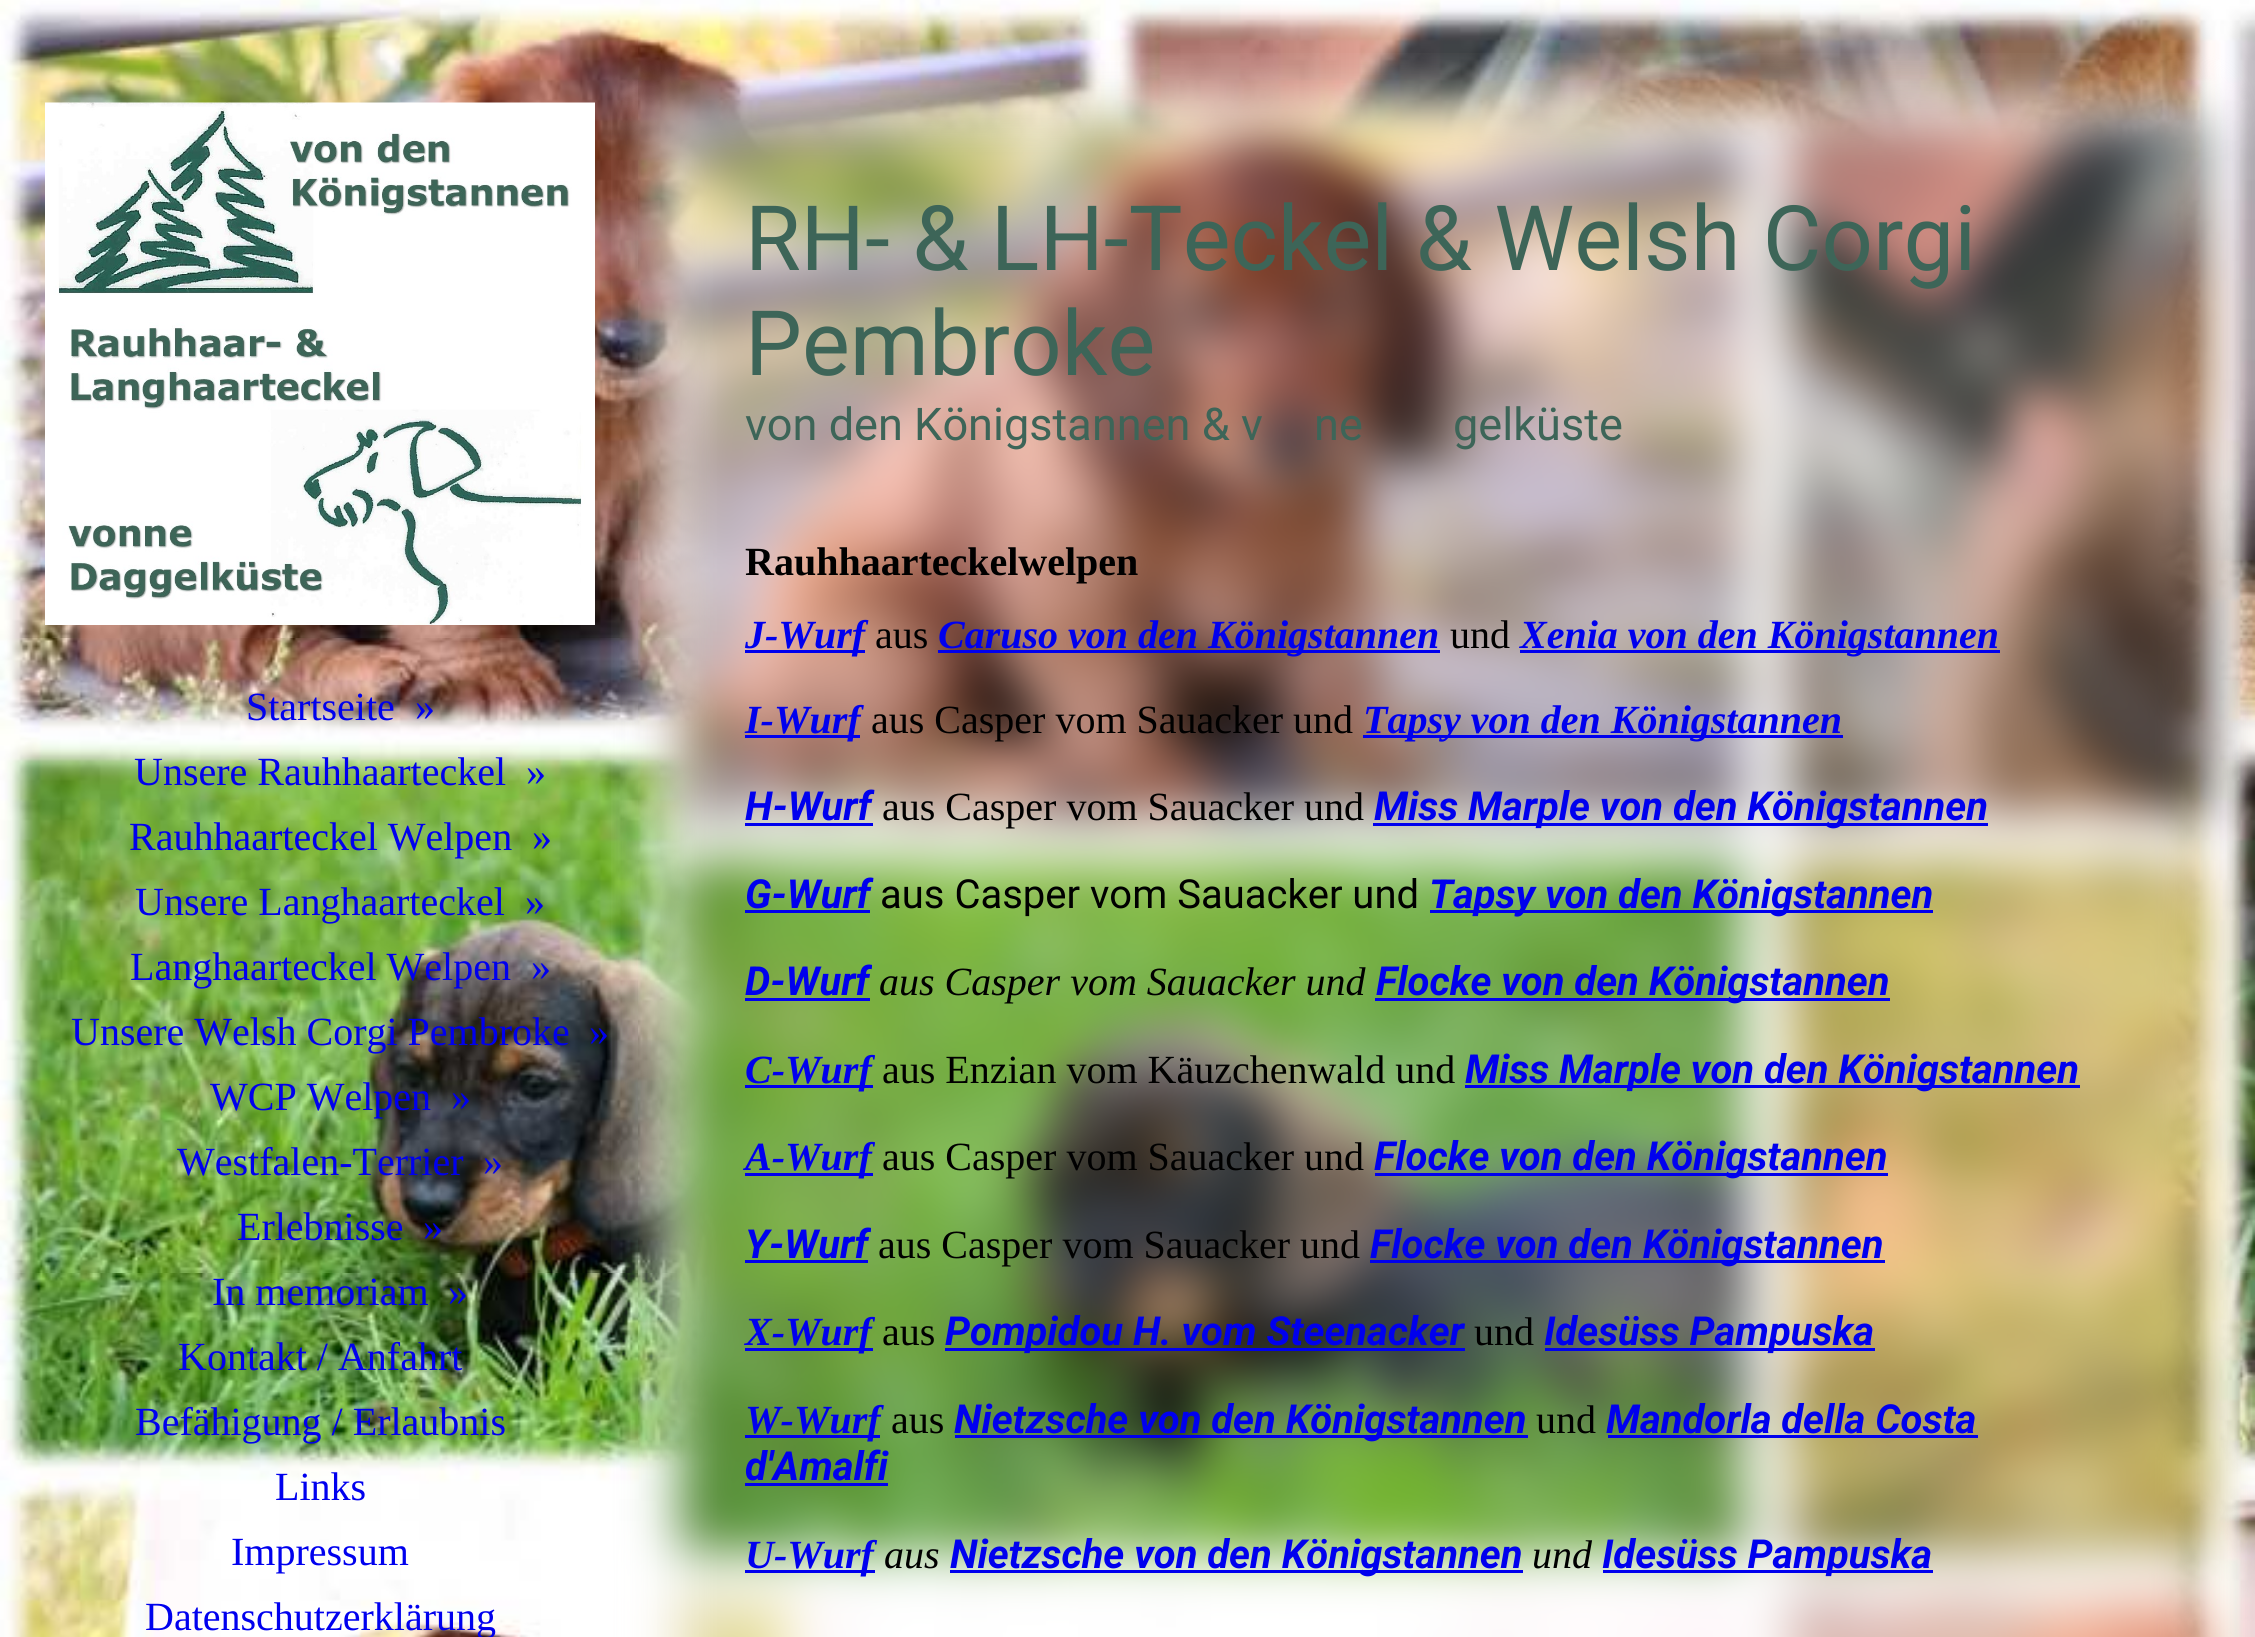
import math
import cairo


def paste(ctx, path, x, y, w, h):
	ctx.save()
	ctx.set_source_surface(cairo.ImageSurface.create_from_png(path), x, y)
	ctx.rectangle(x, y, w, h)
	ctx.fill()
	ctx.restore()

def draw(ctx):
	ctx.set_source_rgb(1, 1, 1)
	ctx.paint()
	paste(ctx, 'media/1.png', 0, 0, 2255, 1637)
	paste(ctx, 'media/2.png', 45, 102, 550, 523)
	ctx.select_font_face('Liberation Serif')
	ctx.set_font_size(40)
	ctx.set_source_rgb(0, 0, 0.933)
	for x, y, s in [
		(246, 720, 'Startseite'),
		(415, 720, '»'),
		(134, 785, 'Unsere Rauhhaarteckel'),
		(526, 785, '»'),
		(129, 850, 'Rauhhaarteckel Welpen'),
		(532, 850, '»'),
		(135, 915, 'Unsere Langhaarteckel'),
		(525, 915, '»'),
		(130, 980, 'Langhaarteckel Welpen'),
		(531, 980, '»'),
		(71, 1045, 'Unsere Welsh Corgi Pembroke'),
		(589, 1045, '»'),
		(210, 1110, 'WCP Welpen'),
		(451, 1110, '»'),
		(177, 1175, 'Westfalen-Terrier'),
		(483, 1175, '»'),
		(237, 1240, 'Erlebnisse'),
		(423, 1240, '»'),
		(212, 1305, 'In memoriam'),
		(448, 1305, '»'),
		(178, 1370, 'Kontakt / Anfahrt'),
		(135, 1435, 'Befähigung / Erlaubnis'),
		(275, 1500, 'Links'),
		(231, 1565, 'Impressum'),
		(145, 1630, 'Datenschutzerklärung'),
	]:
		ctx.move_to(x, y)
		ctx.show_text(s)
	paste(ctx, 'media/3.png', 611, 53, 1644, 1584)
	ctx.select_font_face('Roboto')
	ctx.set_font_size(90.25)
	ctx.set_source_rgb(0.239, 0.396, 0.345)
	ctx.move_to(745, 270)
	ctx.show_text('RH- & LH-Teckel & Welsh Corgi')
	ctx.move_to(745, 375)
	ctx.show_text('Pembroke')
	ctx.set_font_size(45.1)
	for x, y, s in [
		(745, 440, 'von den Königstannen & v'),
		(1314, 440, 'ne'),
		(1453, 440, 'gelküste'),
	]:
		ctx.move_to(x, y)
		ctx.show_text(s)
	ctx.select_font_face('Liberation Serif', cairo.FONT_SLANT_NORMAL, cairo.FONT_WEIGHT_BOLD)
	ctx.set_font_size(40)
	ctx.set_source_rgb(0, 0, 0)
	ctx.move_to(745, 575)
	ctx.show_text('Rauhhaarteckelwelpen')
	ctx.set_source_rgb(0, 0, 0.933)
	ctx.rectangle(745, 650, 120, 3)
	ctx.fill()
	ctx.select_font_face('Liberation Serif', cairo.FONT_SLANT_ITALIC, cairo.FONT_WEIGHT_BOLD)
	ctx.move_to(745, 648)
	ctx.show_text('J-Wurf')
	ctx.select_font_face('Liberation Serif')
	ctx.set_source_rgb(0, 0, 0)
	ctx.move_to(875, 648)
	ctx.show_text('aus')
	ctx.set_source_rgb(0, 0, 0.933)
	ctx.rectangle(938, 650, 502, 3)
	ctx.fill()
	ctx.select_font_face('Liberation Serif', cairo.FONT_SLANT_ITALIC, cairo.FONT_WEIGHT_BOLD)
	ctx.move_to(938, 648)
	ctx.show_text('Caruso von den Königstannen')
	ctx.select_font_face('Liberation Serif')
	ctx.set_source_rgb(0, 0, 0)
	ctx.move_to(1450, 648)
	ctx.show_text('und')
	ctx.set_source_rgb(0, 0, 0.933)
	ctx.rectangle(1520, 650, 480, 3)
	ctx.fill()
	ctx.select_font_face('Liberation Serif', cairo.FONT_SLANT_ITALIC, cairo.FONT_WEIGHT_BOLD)
	ctx.move_to(1520, 648)
	ctx.show_text('Xenia von den Königstannen')
	ctx.rectangle(745, 735, 115, 3)
	ctx.fill()
	ctx.move_to(745, 733)
	ctx.show_text('I-Wurf')
	ctx.select_font_face('Liberation Serif')
	ctx.set_source_rgb(0, 0, 0)
	ctx.move_to(871, 733)
	ctx.show_text('aus Casper vom Sauacker und')
	ctx.set_source_rgb(0, 0, 0.933)
	ctx.rectangle(1363, 735, 480, 3)
	ctx.fill()
	ctx.select_font_face('Liberation Serif', cairo.FONT_SLANT_ITALIC, cairo.FONT_WEIGHT_BOLD)
	ctx.move_to(1363, 733)
	ctx.show_text('Tapsy von den Königstannen')
	ctx.select_font_face('Roboto', cairo.FONT_SLANT_ITALIC, cairo.FONT_WEIGHT_BOLD)
	ctx.move_to(745, 820)
	ctx.show_text('H-Wurf')
	ctx.select_font_face('Liberation Serif')
	ctx.set_source_rgb(0, 0, 0)
	ctx.move_to(882, 820)
	ctx.show_text('aus Casper vom Sauacker und')
	ctx.set_source_rgb(0, 0, 0.933)
	ctx.rectangle(745, 823, 128, 3)
	ctx.fill()
	ctx.rectangle(1373, 823, 615, 3)
	ctx.fill()
	ctx.select_font_face('Roboto', cairo.FONT_SLANT_ITALIC, cairo.FONT_WEIGHT_BOLD)
	ctx.move_to(1374, 820)
	ctx.show_text('Miss Marple von den Königstannen')
	ctx.move_to(745, 908)
	ctx.show_text('G-Wurf')
	ctx.rectangle(745, 910, 125, 3)
	ctx.fill()
	ctx.select_font_face('Roboto')
	ctx.set_source_rgb(0, 0, 0)
	ctx.move_to(880, 908)
	ctx.show_text('aus Casper vom Sauacker und')
	ctx.set_source_rgb(0, 0, 0.933)
	ctx.rectangle(1430, 910, 503, 3)
	ctx.fill()
	ctx.select_font_face('Roboto', cairo.FONT_SLANT_ITALIC, cairo.FONT_WEIGHT_BOLD)
	ctx.move_to(1429, 908)
	ctx.show_text('Tapsy von den Königstannen')
	ctx.move_to(745, 995)
	ctx.show_text('D-Wurf')
	ctx.select_font_face('Liberation Serif', cairo.FONT_SLANT_ITALIC)
	ctx.set_source_rgb(0, 0, 0)
	ctx.move_to(879, 995)
	ctx.show_text('aus Casper vom Sauacker und')
	ctx.set_source_rgb(0, 0, 0.933)
	ctx.rectangle(745, 998, 125, 3)
	ctx.fill()
	ctx.rectangle(1375, 998, 515, 3)
	ctx.fill()
	ctx.select_font_face('Roboto', cairo.FONT_SLANT_ITALIC, cairo.FONT_WEIGHT_BOLD)
	ctx.move_to(1376, 995)
	ctx.show_text('Flocke von den Königstannen')
	ctx.rectangle(745, 1085, 128, 3)
	ctx.fill()
	ctx.select_font_face('Liberation Serif', cairo.FONT_SLANT_ITALIC, cairo.FONT_WEIGHT_BOLD)
	ctx.move_to(745, 1083)
	ctx.show_text('C-Wurf')
	ctx.select_font_face('Liberation Serif')
	ctx.set_source_rgb(0, 0, 0)
	ctx.move_to(882, 1083)
	ctx.show_text('aus Enzian vom Käuzchenwald und')
	ctx.set_source_rgb(0, 0, 0.933)
	ctx.rectangle(1465, 1085, 615, 3)
	ctx.fill()
	ctx.select_font_face('Roboto', cairo.FONT_SLANT_ITALIC, cairo.FONT_WEIGHT_BOLD)
	ctx.move_to(1465, 1083)
	ctx.show_text('Miss Marple von den Königstannen')
	ctx.rectangle(745, 1173, 128, 3)
	ctx.fill()
	ctx.select_font_face('Liberation Serif', cairo.FONT_SLANT_ITALIC, cairo.FONT_WEIGHT_BOLD)
	ctx.move_to(745, 1170)
	ctx.show_text('A-Wurf')
	ctx.select_font_face('Liberation Serif')
	ctx.set_source_rgb(0, 0, 0)
	ctx.move_to(882, 1170)
	ctx.show_text('aus Casper vom Sauacker und')
	ctx.set_source_rgb(0, 0, 0.933)
	ctx.rectangle(1375, 1173, 513, 3)
	ctx.fill()
	ctx.select_font_face('Roboto', cairo.FONT_SLANT_ITALIC, cairo.FONT_WEIGHT_BOLD)
	ctx.move_to(1374, 1170)
	ctx.show_text('Flocke von den Königstannen')
	ctx.move_to(745, 1258)
	ctx.show_text('Y-Wurf')
	ctx.rectangle(745, 1260, 123, 3)
	ctx.fill()
	ctx.select_font_face('Liberation Serif')
	ctx.set_source_rgb(0, 0, 0)
	ctx.move_to(878, 1258)
	ctx.show_text('aus Casper vom Sauacker und')
	ctx.set_source_rgb(0, 0, 0.933)
	ctx.rectangle(1370, 1260, 515, 3)
	ctx.fill()
	ctx.select_font_face('Roboto', cairo.FONT_SLANT_ITALIC, cairo.FONT_WEIGHT_BOLD)
	ctx.move_to(1370, 1258)
	ctx.show_text('Flocke von den Königstannen')
	ctx.rectangle(745, 1348, 128, 3)
	ctx.fill()
	ctx.select_font_face('Liberation Serif', cairo.FONT_SLANT_ITALIC, cairo.FONT_WEIGHT_BOLD)
	ctx.move_to(745, 1345)
	ctx.show_text('X-Wurf')
	ctx.select_font_face('Liberation Serif')
	ctx.set_source_rgb(0, 0, 0)
	ctx.move_to(882, 1345)
	ctx.show_text('aus')
	ctx.set_source_rgb(0, 0, 0.933)
	ctx.rectangle(945, 1348, 520, 3)
	ctx.fill()
	ctx.select_font_face('Roboto', cairo.FONT_SLANT_ITALIC, cairo.FONT_WEIGHT_BOLD)
	ctx.move_to(945, 1345)
	ctx.show_text('Pompidou H. vom Steenacker')
	ctx.select_font_face('Liberation Serif')
	ctx.set_source_rgb(0, 0, 0)
	ctx.move_to(1474, 1345)
	ctx.show_text('und')
	ctx.set_source_rgb(0, 0, 0.933)
	ctx.rectangle(1545, 1348, 330, 3)
	ctx.fill()
	ctx.select_font_face('Roboto', cairo.FONT_SLANT_ITALIC, cairo.FONT_WEIGHT_BOLD)
	ctx.move_to(1544, 1345)
	ctx.show_text('Idesüss Pampuska')
	ctx.rectangle(745, 1435, 135, 3)
	ctx.fill()
	ctx.select_font_face('Liberation Serif', cairo.FONT_SLANT_ITALIC, cairo.FONT_WEIGHT_BOLD)
	ctx.move_to(745, 1433)
	ctx.show_text('W-Wurf')
	ctx.select_font_face('Liberation Serif')
	ctx.set_source_rgb(0, 0, 0)
	ctx.move_to(891, 1433)
	ctx.show_text('aus')
	ctx.set_source_rgb(0, 0, 0.933)
	ctx.rectangle(955, 1435, 573, 3)
	ctx.fill()
	ctx.select_font_face('Roboto', cairo.FONT_SLANT_ITALIC, cairo.FONT_WEIGHT_BOLD)
	ctx.move_to(954, 1433)
	ctx.show_text('Nietzsche von den Königstannen')
	ctx.select_font_face('Liberation Serif')
	ctx.set_source_rgb(0, 0, 0)
	ctx.move_to(1536, 1433)
	ctx.show_text('und')
	ctx.select_font_face('Roboto', cairo.FONT_SLANT_ITALIC, cairo.FONT_WEIGHT_BOLD)
	ctx.set_source_rgb(0, 0, 0.933)
	ctx.move_to(1606, 1433)
	ctx.show_text('Mandorla della Costa')
	ctx.rectangle(1608, 1435, 370, 3)
	ctx.fill()
	ctx.move_to(745, 1480)
	ctx.show_text('d\'Amalfi')
	ctx.rectangle(745, 1483, 143, 3)
	ctx.fill()
	ctx.rectangle(745, 1570, 130, 3)
	ctx.fill()
	ctx.select_font_face('Liberation Serif', cairo.FONT_SLANT_ITALIC, cairo.FONT_WEIGHT_BOLD)
	ctx.move_to(745, 1568)
	ctx.show_text('U-Wurf')
	ctx.select_font_face('Liberation Serif', cairo.FONT_SLANT_ITALIC)
	ctx.set_source_rgb(0, 0, 0)
	ctx.move_to(884, 1568)
	ctx.show_text('aus')
	ctx.set_source_rgb(0, 0, 0.933)
	ctx.rectangle(950, 1570, 573, 3)
	ctx.fill()
	ctx.select_font_face('Roboto', cairo.FONT_SLANT_ITALIC, cairo.FONT_WEIGHT_BOLD)
	ctx.move_to(950, 1568)
	ctx.show_text('Nietzsche von den Königstannen')
	ctx.select_font_face('Liberation Serif', cairo.FONT_SLANT_ITALIC)
	ctx.set_source_rgb(0, 0, 0)
	ctx.move_to(1532, 1568)
	ctx.show_text('und')
	ctx.set_source_rgb(0, 0, 0.933)
	ctx.rectangle(1603, 1570, 330, 3)
	ctx.fill()
	ctx.select_font_face('Roboto', cairo.FONT_SLANT_ITALIC, cairo.FONT_WEIGHT_BOLD)
	ctx.move_to(1602, 1568)
	ctx.show_text('Idesüss Pampuska')


surface = cairo.ImageSurface(cairo.FORMAT_RGB24, 2255, 1637)
ctx = cairo.Context(surface)
options = cairo.FontOptions()
options.set_hint_metrics(cairo.HINT_METRICS_OFF)
options.set_hint_style(cairo.HINT_STYLE_NONE)
ctx.set_font_options(options)
ctx.set_miter_limit(4)
draw(ctx)
surface.write_to_png('image.png')
